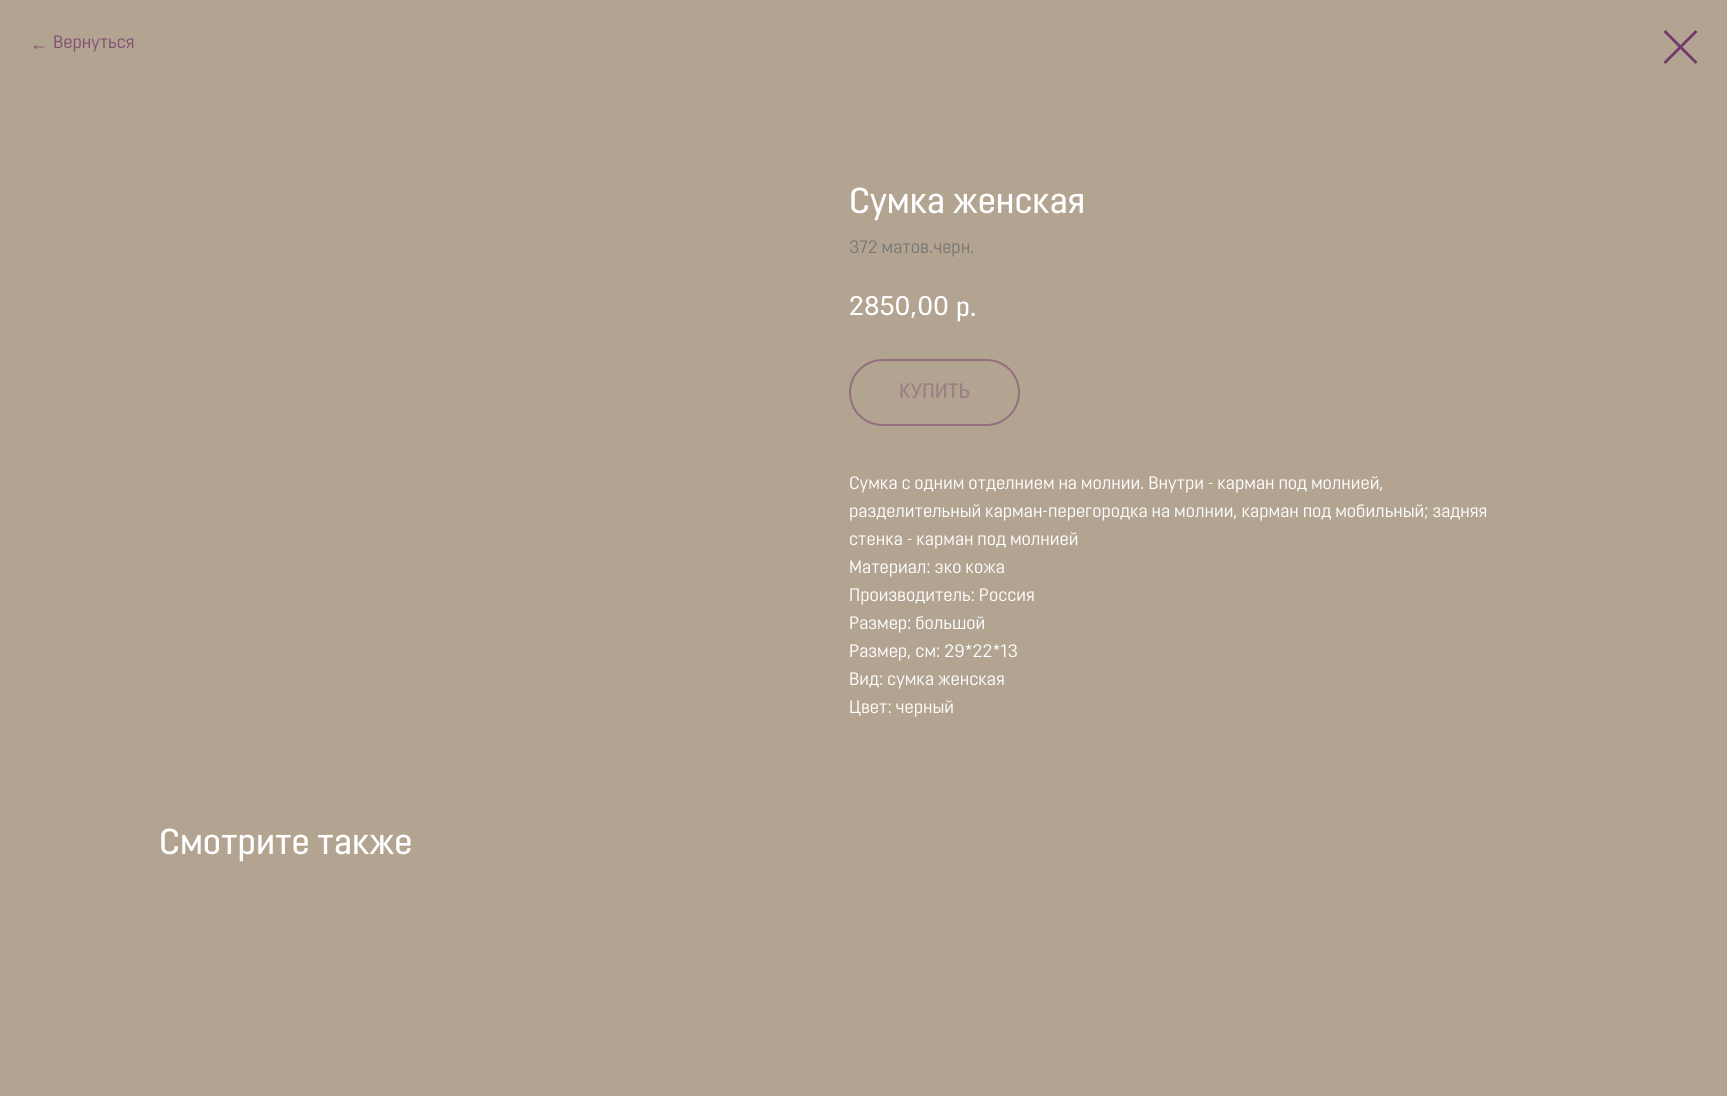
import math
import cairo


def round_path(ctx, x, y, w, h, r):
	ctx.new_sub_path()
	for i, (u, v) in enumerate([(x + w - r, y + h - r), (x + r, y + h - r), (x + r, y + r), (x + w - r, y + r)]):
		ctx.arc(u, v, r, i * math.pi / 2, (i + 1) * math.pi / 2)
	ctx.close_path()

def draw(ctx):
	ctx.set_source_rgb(0.702, 0.643, 0.569)
	ctx.paint()
	ctx.select_font_face('Liberation Sans')
	ctx.set_font_size(18)
	ctx.set_source_rgb(0.498, 0.306, 0.451)
	ctx.move_to(30, 50)
	ctx.show_text('←')
	ctx.select_font_face('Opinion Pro')
	ctx.move_to(53, 48)
	ctx.show_text('Вернуться')
	ctx.set_source_rgb(0.447, 0.224, 0.42)
	ctx.set_fill_rule(cairo.FILL_RULE_EVEN_ODD)
	ctx.new_path()
	ctx.move_to(1663.5, 32)
	ctx.line_to(1665.5, 30)
	ctx.line_to(1697.5, 62)
	ctx.line_to(1695.5, 64)
	ctx.close_path()
	ctx.fill()
	ctx.new_path()
	ctx.move_to(1695.5, 30)
	ctx.line_to(1697.5, 32)
	ctx.line_to(1665.5, 64)
	ctx.line_to(1663.5, 62)
	ctx.close_path()
	ctx.fill()
	ctx.select_font_face('Opinion Pro Medium')
	ctx.set_font_size(36)
	ctx.set_source_rgb(1, 1, 1)
	ctx.move_to(849, 213)
	ctx.show_text('Сумка женская')
	ctx.select_font_face('Opinion Pro')
	ctx.set_font_size(18)
	ctx.set_source_rgb(0.467, 0.467, 0.467)
	ctx.move_to(849, 253)
	ctx.show_text('372 матов.черн.')
	ctx.select_font_face('Opinion Pro Medium')
	ctx.set_font_size(27)
	ctx.set_source_rgb(1, 1, 1)
	ctx.move_to(849, 315)
	ctx.show_text('2850,00')
	ctx.move_to(956, 316)
	ctx.show_text('р.')
	round_path(ctx, 850, 360, 169, 65, 32.5)
	ctx.set_source_rgb(0.576, 0.435, 0.494)
	ctx.stroke()
	ctx.set_font_size(21)
	ctx.set_source_rgb(0.612, 0.498, 0.518)
	ctx.move_to(899, 398)
	ctx.show_text('КУПИТЬ')
	ctx.select_font_face('Opinion Pro')
	ctx.set_font_size(18)
	ctx.set_source_rgb(1, 1, 1)
	for x, y, s in [
		(849, 489, 'Сумка с одним отделнием на молнии. Внутри - карман под молнией,'),
		(849, 517, 'разделительный карман-перегородка на молнии, карман под мобильный; задняя'),
		(849, 545, 'стенка - карман под молнией'),
		(849, 573, 'Материал: эко кожа'),
		(849, 601, 'Производитель: Россия'),
		(849, 629, 'Размер: большой'),
		(849, 657, 'Размер, см: 29*22*13'),
		(849, 685, 'Вид: сумка женская'),
		(849, 713, 'Цвет: черный'),
	]:
		ctx.move_to(x, y)
		ctx.show_text(s)
	ctx.select_font_face('Opinion Pro Medium')
	ctx.set_font_size(36)
	ctx.move_to(159, 854)
	ctx.show_text('Смотрите также')


surface = cairo.ImageSurface(cairo.FORMAT_RGB24, 1727, 1096)
ctx = cairo.Context(surface)
options = cairo.FontOptions()
options.set_hint_metrics(cairo.HINT_METRICS_OFF)
options.set_hint_style(cairo.HINT_STYLE_NONE)
ctx.set_font_options(options)
ctx.set_miter_limit(4)
draw(ctx)
surface.write_to_png('image.png')
